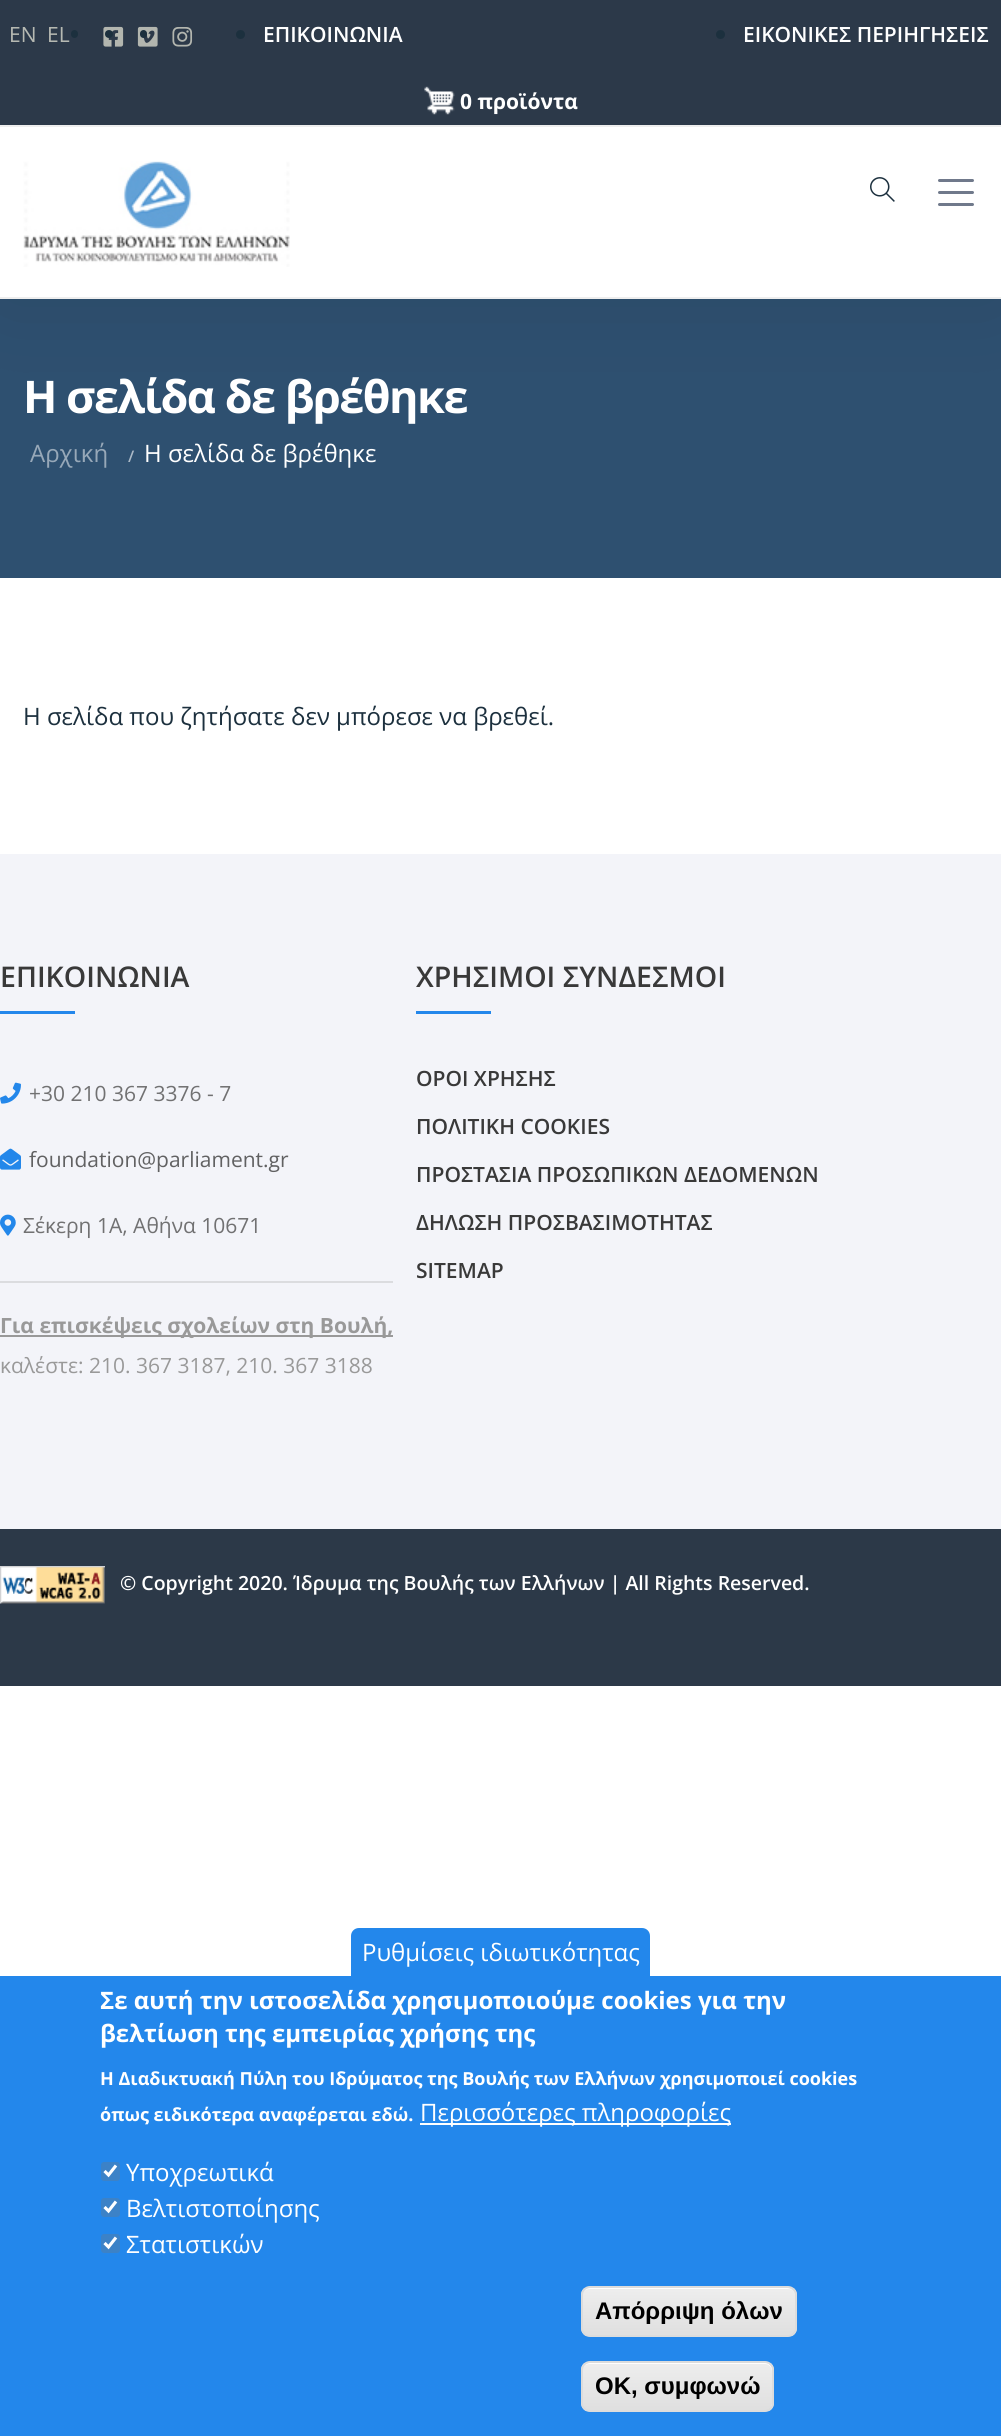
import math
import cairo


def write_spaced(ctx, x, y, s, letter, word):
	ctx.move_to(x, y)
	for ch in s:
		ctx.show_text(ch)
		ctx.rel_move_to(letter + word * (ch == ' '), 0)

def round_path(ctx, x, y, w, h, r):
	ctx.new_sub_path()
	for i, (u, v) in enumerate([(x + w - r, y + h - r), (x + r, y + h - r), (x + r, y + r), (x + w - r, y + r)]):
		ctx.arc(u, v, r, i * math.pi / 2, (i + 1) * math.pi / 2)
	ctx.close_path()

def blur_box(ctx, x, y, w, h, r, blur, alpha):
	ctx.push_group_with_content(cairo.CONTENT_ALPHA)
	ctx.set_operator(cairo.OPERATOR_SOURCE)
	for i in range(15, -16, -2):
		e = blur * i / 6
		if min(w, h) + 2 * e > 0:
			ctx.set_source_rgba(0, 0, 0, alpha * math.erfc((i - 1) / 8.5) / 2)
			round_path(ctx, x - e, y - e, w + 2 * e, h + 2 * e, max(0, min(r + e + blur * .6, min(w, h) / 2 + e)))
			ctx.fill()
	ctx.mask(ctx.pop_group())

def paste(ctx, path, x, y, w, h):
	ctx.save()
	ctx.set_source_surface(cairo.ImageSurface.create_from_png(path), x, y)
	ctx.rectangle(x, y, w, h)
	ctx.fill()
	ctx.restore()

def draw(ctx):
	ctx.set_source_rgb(1, 1, 1)
	ctx.paint()
	ctx.set_source_rgb(0.18, 0.314, 0.439)
	ctx.rectangle(0, 299, 1001, 279)
	ctx.fill()
	ctx.set_source_rgb(0, 0, 0)
	blur_box(ctx, 0, 126, 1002, 173, 0, 49, 0.09)
	ctx.set_source_rgb(1, 1, 1)
	ctx.rectangle(0, 127, 1001, 170)
	ctx.fill()
	ctx.set_source_rgb(0.933, 0.933, 0.933)
	ctx.rectangle(0, 297, 1001, 2)
	ctx.fill()
	paste(ctx, 'media/1.png', 23, 161, 267, 106)
	ctx.set_source_rgb(0.439, 0.475, 0.545)
	round_path(ctx, 938, 203, 36, 3, 1.5)
	ctx.fill()
	round_path(ctx, 938, 191, 36, 3, 1.5)
	ctx.fill()
	round_path(ctx, 938, 179, 36, 3, 1.5)
	ctx.fill()
	paste(ctx, 'media/2.png', 870, 177, 25, 25)
	ctx.set_source_rgb(0.173, 0.224, 0.286)
	ctx.rectangle(0, 0, 1001, 125)
	ctx.fill()
	ctx.set_source_rgb(0.933, 0.933, 0.933)
	ctx.rectangle(0, 125, 1001, 2)
	ctx.fill()
	ctx.select_font_face('Open Sans')
	ctx.set_font_size(21)
	ctx.set_source_rgb(0.714, 0.725, 0.698)
	ctx.move_to(9, 42)
	ctx.show_text('EN')
	ctx.move_to(47, 42)
	ctx.show_text('EL')
	ctx.set_source_rgb(0.11, 0.188, 0.243)
	round_path(ctx, 71, 30, 7, 8, 3.5)
	ctx.fill()
	paste(ctx, 'media/3.png', 103, 26, 21, 21)
	ctx.arc(109, 34, 4, 0, 2 * math.pi)
	ctx.fill()
	paste(ctx, 'media/4.png', 137, 26, 21, 21)
	round_path(ctx, 140, 30, 7, 8, 3.5)
	ctx.fill()
	paste(ctx, 'media/5.png', 172, 27, 21, 20)
	ctx.arc(240.5, 34.5, 4.5, 0, 2 * math.pi)
	ctx.fill()
	ctx.select_font_face('Open Sans SemiBold')
	ctx.set_source_rgb(1, 1, 1)
	ctx.move_to(263, 42)
	ctx.show_text('ΕΠΙΚΟΙΝΩΝΙΑ')
	ctx.set_source_rgb(0.11, 0.188, 0.243)
	ctx.new_path()
	ctx.arc(720.5, 34.5, 4.5, 0, 2 * math.pi)
	ctx.fill()
	ctx.set_source_rgb(1, 1, 1)
	ctx.move_to(743, 42)
	ctx.show_text('ΕΙΚΟΝΙΚΕΣ ΠΕΡΙΗΓΗΣΕΙΣ')
	paste(ctx, 'media/6.png', 424, 86, 31, 29)
	ctx.select_font_face('Open Sans', cairo.FONT_SLANT_NORMAL, cairo.FONT_WEIGHT_BOLD)
	ctx.move_to(460, 109)
	ctx.show_text('0 προϊόντα')
	ctx.set_font_size(45)
	write_spaced(ctx, 23, 413, 'Η σελίδα δε βρέθηκε', -1.5, 0)
	ctx.select_font_face('Open Sans')
	ctx.set_font_size(24)
	ctx.set_source_rgb(0.592, 0.659, 0.722)
	ctx.move_to(30, 462)
	ctx.show_text('Αρχική')
	ctx.select_font_face('Open Sans SemiBold')
	ctx.set_font_size(16)
	ctx.set_source_rgb(0.671, 0.725, 0.776)
	ctx.move_to(128, 462)
	ctx.show_text('/')
	ctx.select_font_face('Open Sans')
	ctx.set_font_size(24)
	ctx.set_source_rgb(1, 1, 1)
	ctx.move_to(144, 462)
	ctx.show_text('Η σελίδα δε βρέθηκε')
	ctx.set_source_rgb(0.11, 0.188, 0.243)
	ctx.move_to(23, 725)
	ctx.show_text('Η σελίδα που ζητήσατε δεν μπόρεσε να βρεθεί.')
	ctx.set_source_rgb(0.953, 0.957, 0.973)
	ctx.rectangle(0, 854, 1001, 675)
	ctx.fill()
	ctx.select_font_face('Open Sans SemiBold')
	ctx.set_font_size(28.5)
	ctx.set_source_rgb(0.224, 0.224, 0.224)
	ctx.move_to(0, 987)
	ctx.show_text('ΕΠΙΚΟΙΝΩΝΙΑ')
	ctx.set_source_rgb(0.137, 0.529, 0.918)
	ctx.rectangle(0, 1011, 75, 3)
	ctx.fill()
	paste(ctx, 'media/7.png', 0, 1082, 21, 22)
	ctx.select_font_face('Open Sans')
	ctx.set_font_size(21)
	ctx.set_source_rgb(0.443, 0.443, 0.447)
	ctx.move_to(29, 1101)
	ctx.show_text('+30 210 367 3376 - 7')
	paste(ctx, 'media/8.png', 0, 1148, 21, 22)
	ctx.set_source_rgb(0.38, 0.38, 0.384)
	ctx.move_to(29, 1167)
	ctx.show_text('foundation@parliament.gr')
	paste(ctx, 'media/9.png', 0, 1214, 16, 22)
	ctx.set_source_rgb(0.443, 0.443, 0.447)
	ctx.move_to(23, 1233)
	ctx.show_text('Σέκερη 1Α, Αθήνα 10671')
	ctx.set_source_rgb(0.859, 0.863, 0.875)
	ctx.rectangle(0, 1281, 393, 2)
	ctx.fill()
	ctx.set_source_rgb(0.6, 0.6, 0.6)
	ctx.rectangle(0, 1335, 393, 2)
	ctx.fill()
	ctx.select_font_face('Open Sans', cairo.FONT_SLANT_NORMAL, cairo.FONT_WEIGHT_BOLD)
	ctx.move_to(0, 1333)
	ctx.show_text('Για επισκέψεις σχολείων στη Βουλή,')
	ctx.select_font_face('Open Sans')
	ctx.move_to(0, 1373)
	ctx.show_text('καλέστε: 210. 367 3187, 210. 367 3188')
	ctx.select_font_face('Open Sans SemiBold')
	ctx.set_font_size(28.5)
	ctx.set_source_rgb(0.224, 0.224, 0.224)
	ctx.move_to(416, 987)
	ctx.show_text('ΧΡΗΣΙΜΟΙ ΣΥΝΔΕΣΜΟΙ')
	ctx.set_source_rgb(0.137, 0.529, 0.918)
	ctx.rectangle(416, 1011, 75, 3)
	ctx.fill()
	ctx.set_font_size(21)
	ctx.set_source_rgb(0.224, 0.224, 0.224)
	for x, y, s in [
		(416, 1086, 'ΟΡΟΙ ΧΡΗΣΗΣ'),
		(416, 1134, 'ΠΟΛΙΤΙΚΗ COOKIES'),
		(416, 1182, 'ΠΡΟΣΤΑΣΙΑ ΠΡΟΣΩΠΙΚΩΝ ΔΕΔΟΜΕΝΩΝ'),
		(416, 1230, 'ΔΗΛΩΣΗ ΠΡΟΣΒΑΣΙΜΟΤΗΤΑΣ'),
		(416, 1278, 'SITEMAP'),
	]:
		ctx.move_to(x, y)
		ctx.show_text(s)
	ctx.set_source_rgb(0.173, 0.224, 0.282)
	ctx.rectangle(0, 1529, 1001, 157)
	ctx.fill()
	paste(ctx, 'media/10.png', 0, 1566, 105, 38)
	ctx.set_font_size(19.5)
	ctx.set_source_rgb(1, 1, 1)
	ctx.move_to(120, 1590)
	ctx.show_text('© Copyright 2020. Ίδρυμα της Βουλής των Ελλήνων | All Rights Reserved.')
	ctx.set_source_rgb(0.137, 0.529, 0.918)
	ctx.rectangle(0, 1976, 1001, 460)
	ctx.fill()
	ctx.new_path()
	ctx.move_to(359, 1928)
	ctx.line_to(642, 1928)
	ctx.curve_to(646.5, 1928, 650, 1931.5, 650, 1936)
	ctx.line_to(650, 1976)
	ctx.line_to(351, 1976)
	ctx.line_to(351, 1936)
	ctx.curve_to(351, 1931.5, 354.5, 1928, 359, 1928)
	ctx.close_path()
	ctx.fill()
	ctx.select_font_face('Open Sans')
	ctx.set_font_size(24)
	ctx.set_source_rgb(1, 1, 1)
	ctx.move_to(362, 1961)
	ctx.show_text('Ρυθμίσεις ιδιωτικότητας')
	ctx.select_font_face('Open Sans', cairo.FONT_SLANT_NORMAL, cairo.FONT_WEIGHT_BOLD)
	ctx.move_to(100, 2009)
	ctx.show_text('Σε αυτή την ιστοσελίδα χρησιμοποιούμε cookies για την')
	ctx.move_to(100, 2042)
	ctx.show_text('βελτίωση της εμπειρίας χρήσης της')
	ctx.set_font_size(18)
	ctx.move_to(100, 2085)
	ctx.show_text('Η Διαδικτυακή Πύλη του Ιδρύματος της Βουλής των Ελλήνων χρησιμοποιεί cookies')
	ctx.move_to(100, 2121)
	ctx.show_text('όπως ειδικότερα αναφέρεται εδώ.')
	ctx.rectangle(420, 2123, 311, 2)
	ctx.fill()
	ctx.select_font_face('Open Sans')
	ctx.set_font_size(24)
	ctx.move_to(420, 2121)
	ctx.show_text('Περισσότερες πληροφορίες')
	ctx.set_source_rgb(0.235, 0.51, 0.78)
	round_path(ctx, 101, 2162, 19, 19, 3)
	ctx.fill()
	ctx.new_path()
	ctx.move_to(104.5, 2171)
	ctx.line_to(108.5, 2175)
	ctx.line_to(116, 2165.5)
	ctx.set_source_rgb(1, 1, 1)
	ctx.set_line_width(3.1)
	ctx.stroke()
	ctx.move_to(126, 2181)
	ctx.show_text('Υποχρεωτικά')
	ctx.set_source_rgb(0.235, 0.51, 0.78)
	round_path(ctx, 101, 2198, 19, 19, 3)
	ctx.fill()
	ctx.new_path()
	ctx.move_to(104.5, 2207)
	ctx.line_to(108.5, 2211)
	ctx.line_to(116, 2201.5)
	ctx.set_source_rgb(1, 1, 1)
	ctx.stroke()
	ctx.move_to(126, 2217)
	ctx.show_text('Βελτιστοποίησης')
	ctx.set_source_rgb(0.235, 0.51, 0.78)
	round_path(ctx, 101, 2234, 19, 19, 3)
	ctx.fill()
	ctx.new_path()
	ctx.move_to(104.5, 2243)
	ctx.line_to(108.5, 2247)
	ctx.line_to(116, 2237.5)
	ctx.set_source_rgb(1, 1, 1)
	ctx.stroke()
	ctx.move_to(126, 2253)
	ctx.show_text('Στατιστικών')
	ctx.save()
	round_path(ctx, 581, 2286, 216, 51, 9)
	ctx.clip()
	gradient = cairo.LinearGradient(689, 2288, 689, 2336)
	gradient.add_color_stop_rgba(0.05, 0.929, 0.929, 0.929, 1)
	gradient.add_color_stop_rgba(1, 0.875, 0.875, 0.875, 1)
	ctx.set_source(gradient)
	ctx.rectangle(581, 2288, 216, 48)
	ctx.fill()
	ctx.restore()
	ctx.new_path()
	ctx.move_to(590, 2289)
	ctx.line_to(788, 2289)
	ctx.curve_to(792, 2289, 795, 2292, 795, 2296)
	ctx.curve_to(795, 2292, 791, 2288, 787, 2288)
	ctx.line_to(590, 2288)
	ctx.curve_to(586, 2288, 582, 2292, 582, 2296)
	ctx.curve_to(582, 2292, 585, 2289, 590, 2289)
	ctx.close_path()
	ctx.fill()
	round_path(ctx, 582, 2287, 214, 49, 8)
	ctx.set_source_rgb(0.863, 0.863, 0.863)
	ctx.set_line_width(2)
	ctx.stroke()
	ctx.select_font_face('Liberation Sans', cairo.FONT_SLANT_NORMAL, cairo.FONT_WEIGHT_BOLD)
	ctx.set_source_rgb(0, 0, 0)
	ctx.move_to(595, 2319)
	ctx.show_text('Απόρριψη όλων')
	ctx.save()
	round_path(ctx, 581, 2361, 193, 51, 9)
	ctx.clip()
	gradient = cairo.LinearGradient(677, 2363, 677, 2411)
	gradient.add_color_stop_rgba(0.05, 0.929, 0.929, 0.929, 1)
	gradient.add_color_stop_rgba(1, 0.875, 0.875, 0.875, 1)
	ctx.set_source(gradient)
	ctx.rectangle(581, 2363, 193, 48)
	ctx.fill()
	ctx.restore()
	ctx.set_source_rgb(1, 1, 1)
	ctx.new_path()
	ctx.move_to(590, 2364)
	ctx.line_to(765, 2364)
	ctx.curve_to(769, 2364, 772, 2367, 772, 2372)
	ctx.line_to(772, 2404)
	ctx.line_to(771, 2408)
	ctx.curve_to(772, 2407, 773, 2405, 773, 2403)
	ctx.line_to(773, 2371)
	ctx.curve_to(773, 2367, 769, 2363, 765, 2363)
	ctx.line_to(590, 2363)
	ctx.curve_to(586, 2363, 582, 2367, 582, 2371)
	ctx.line_to(582, 2372)
	ctx.curve_to(582, 2367, 585, 2364, 590, 2364)
	ctx.close_path()
	ctx.fill()
	round_path(ctx, 582, 2362, 191, 49, 8)
	ctx.set_source_rgb(0.863, 0.863, 0.863)
	ctx.stroke()
	ctx.set_source_rgb(0, 0, 0)
	ctx.move_to(595, 2394)
	ctx.show_text('OK, συμφωνώ')


surface = cairo.ImageSurface(cairo.FORMAT_RGB24, 1001, 2436)
ctx = cairo.Context(surface)
options = cairo.FontOptions()
options.set_hint_metrics(cairo.HINT_METRICS_OFF)
options.set_hint_style(cairo.HINT_STYLE_NONE)
ctx.set_font_options(options)
ctx.set_miter_limit(4)
draw(ctx)
surface.write_to_png('image.png')
